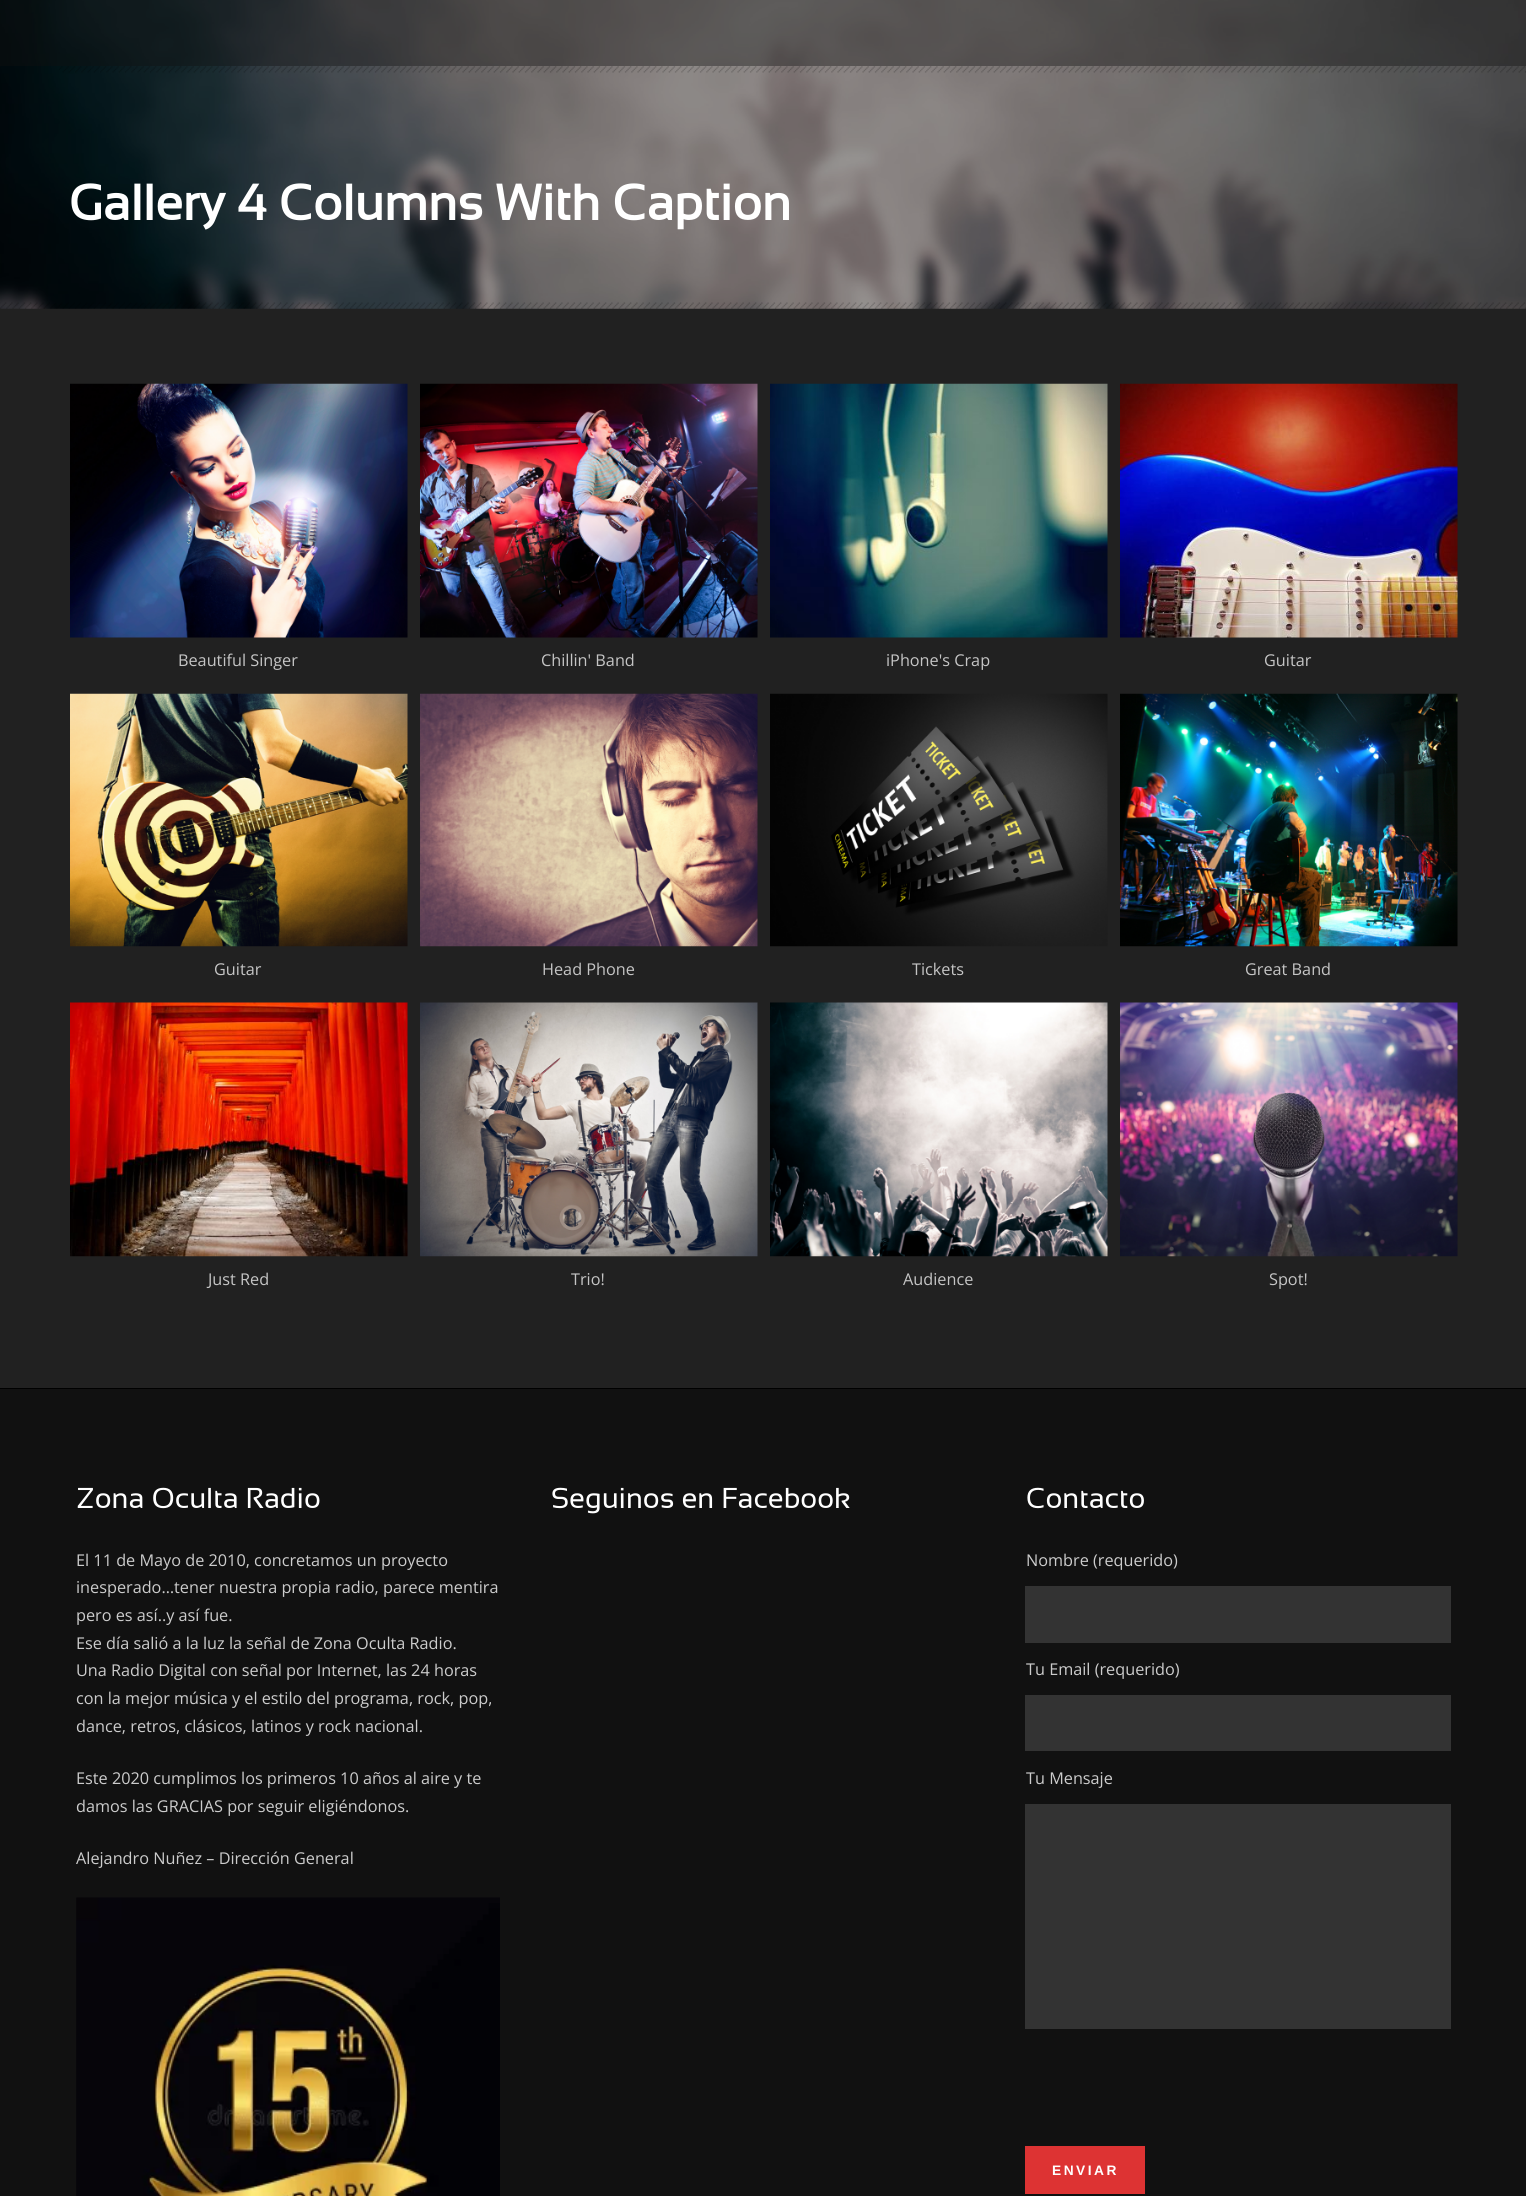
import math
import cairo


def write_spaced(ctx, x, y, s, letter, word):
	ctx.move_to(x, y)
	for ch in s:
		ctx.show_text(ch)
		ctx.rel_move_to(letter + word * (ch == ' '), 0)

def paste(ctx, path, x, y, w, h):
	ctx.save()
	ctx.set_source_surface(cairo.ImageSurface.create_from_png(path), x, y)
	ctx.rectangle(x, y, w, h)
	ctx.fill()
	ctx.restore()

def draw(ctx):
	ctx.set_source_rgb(0.129, 0.129, 0.129)
	ctx.paint()
	paste(ctx, 'media/2.png', 0, 0, 1526, 309)
	ctx.set_source_rgba(0.067, 0.067, 0.067, 0.4)
	ctx.rectangle(0, 0, 1526, 66)
	ctx.fill()
	paste(ctx, 'media/1.png', 59, 66, 1467, 7)
	ctx.select_font_face('Sansation', cairo.FONT_SLANT_NORMAL, cairo.FONT_WEIGHT_BOLD)
	ctx.set_font_size(50)
	ctx.set_source_rgb(1, 1, 1)
	ctx.move_to(69, 220)
	ctx.show_text('Gallery 4 Columns With Caption')
	paste(ctx, 'media/3.png', 0, 302, 1526, 7)
	paste(ctx, 'media/4.png', 70, 383, 338, 255)
	ctx.select_font_face('Open Sans')
	ctx.set_font_size(16.25)
	ctx.set_source_rgb(0.773, 0.773, 0.773)
	ctx.move_to(178, 666)
	ctx.show_text('Beautiful Singer')
	paste(ctx, 'media/5.png', 420, 383, 338, 255)
	ctx.move_to(541, 666)
	ctx.show_text('Chillin\' Band')
	paste(ctx, 'media/6.png', 770, 383, 338, 255)
	ctx.move_to(886, 666)
	ctx.show_text('iPhone\'s Crap')
	paste(ctx, 'media/7.png', 1120, 383, 338, 255)
	ctx.move_to(1264, 666)
	ctx.show_text('Guitar')
	paste(ctx, 'media/8.png', 70, 693, 338, 254)
	ctx.move_to(214, 975)
	ctx.show_text('Guitar')
	paste(ctx, 'media/9.png', 420, 693, 338, 254)
	ctx.move_to(542, 975)
	ctx.show_text('Head Phone')
	paste(ctx, 'media/10.png', 770, 693, 338, 254)
	ctx.move_to(912, 975)
	ctx.show_text('Tickets')
	paste(ctx, 'media/11.png', 1120, 693, 338, 254)
	ctx.move_to(1245, 975)
	ctx.show_text('Great Band')
	paste(ctx, 'media/12.png', 70, 1002, 338, 255)
	ctx.move_to(208, 1285)
	ctx.show_text('Just Red')
	paste(ctx, 'media/13.png', 420, 1002, 338, 255)
	ctx.move_to(571, 1285)
	ctx.show_text('Trio!')
	paste(ctx, 'media/14.png', 770, 1002, 338, 255)
	ctx.move_to(903, 1285)
	ctx.show_text('Audience')
	paste(ctx, 'media/15.png', 1120, 1002, 338, 255)
	ctx.move_to(1269, 1285)
	ctx.show_text('Spot!')
	ctx.set_source_rgb(0.067, 0.067, 0.067)
	ctx.rectangle(0, 1389, 1526, 807)
	ctx.fill()
	ctx.set_source_rgb(0, 0, 0)
	ctx.rectangle(0, 1388, 1526, 1)
	ctx.fill()
	ctx.select_font_face('Sansation')
	ctx.set_font_size(28.75)
	ctx.set_source_rgb(1, 1, 1)
	ctx.move_to(76, 1508)
	ctx.show_text('Zona Oculta Radio')
	ctx.select_font_face('Open Sans')
	ctx.set_font_size(16.25)
	ctx.set_source_rgb(0.8, 0.8, 0.8)
	for x, y, s in [
		(76, 1566, 'El 11 de Mayo de 2010, concretamos un proyecto'),
		(76, 1593, 'inesperado…tener nuestra propia radio, parece mentira'),
		(76, 1621, 'pero es así..y así fue.'),
		(76, 1649, 'Ese día salió a la luz la señal de Zona Oculta Radio.'),
		(76, 1676, 'Una Radio Digital con señal por Internet, las 24 horas'),
		(76, 1704, 'con la mejor música y el estilo del programa, rock, pop,'),
		(76, 1732, 'dance, retros, clásicos, latinos y rock nacional.'),
		(76, 1784, 'Este 2020 cumplimos los primeros 10 años al aire y te'),
		(76, 1812, 'damos las GRACIAS por seguir eligiéndonos.'),
		(76, 1864, 'Alejandro Nuñez – Dirección General'),
	]:
		ctx.move_to(x, y)
		ctx.show_text(s)
	paste(ctx, 'media/16.png', 76, 1897, 424, 299)
	ctx.select_font_face('Sansation')
	ctx.set_font_size(28.75)
	ctx.set_source_rgb(1, 1, 1)
	ctx.move_to(551, 1508)
	ctx.show_text('Seguinos en Facebook')
	ctx.move_to(1026, 1508)
	ctx.show_text('Contacto')
	ctx.select_font_face('Open Sans')
	ctx.set_font_size(16.25)
	ctx.set_source_rgb(0.8, 0.8, 0.8)
	ctx.move_to(1026, 1566)
	ctx.show_text('Nombre (requerido)')
	ctx.set_source_rgb(0.2, 0.2, 0.2)
	ctx.rectangle(1025, 1586, 426, 57)
	ctx.fill()
	ctx.set_source_rgb(0.8, 0.8, 0.8)
	ctx.move_to(1026, 1675)
	ctx.show_text('Tu Email (requerido)')
	ctx.set_source_rgb(0.2, 0.2, 0.2)
	ctx.rectangle(1025, 1695, 426, 56)
	ctx.fill()
	ctx.set_source_rgb(0.8, 0.8, 0.8)
	ctx.move_to(1026, 1784)
	ctx.show_text('Tu Mensaje')
	ctx.set_source_rgb(0.2, 0.2, 0.2)
	ctx.rectangle(1025, 1804, 426, 225)
	ctx.fill()
	ctx.set_source_rgb(0.867, 0.2, 0.2)
	ctx.rectangle(1025, 2146, 120, 48)
	ctx.fill()
	ctx.select_font_face('Liberation Sans', cairo.FONT_SLANT_NORMAL, cairo.FONT_WEIGHT_BOLD)
	ctx.set_font_size(13.75)
	ctx.set_source_rgb(1, 1, 1)
	write_spaced(ctx, 1052, 2175, 'ENVIAR', 2.5, 0)


surface = cairo.ImageSurface(cairo.FORMAT_RGB24, 1526, 2196)
ctx = cairo.Context(surface)
options = cairo.FontOptions()
options.set_hint_metrics(cairo.HINT_METRICS_OFF)
options.set_hint_style(cairo.HINT_STYLE_NONE)
ctx.set_font_options(options)
ctx.set_miter_limit(4)
draw(ctx)
surface.write_to_png('image.png')
